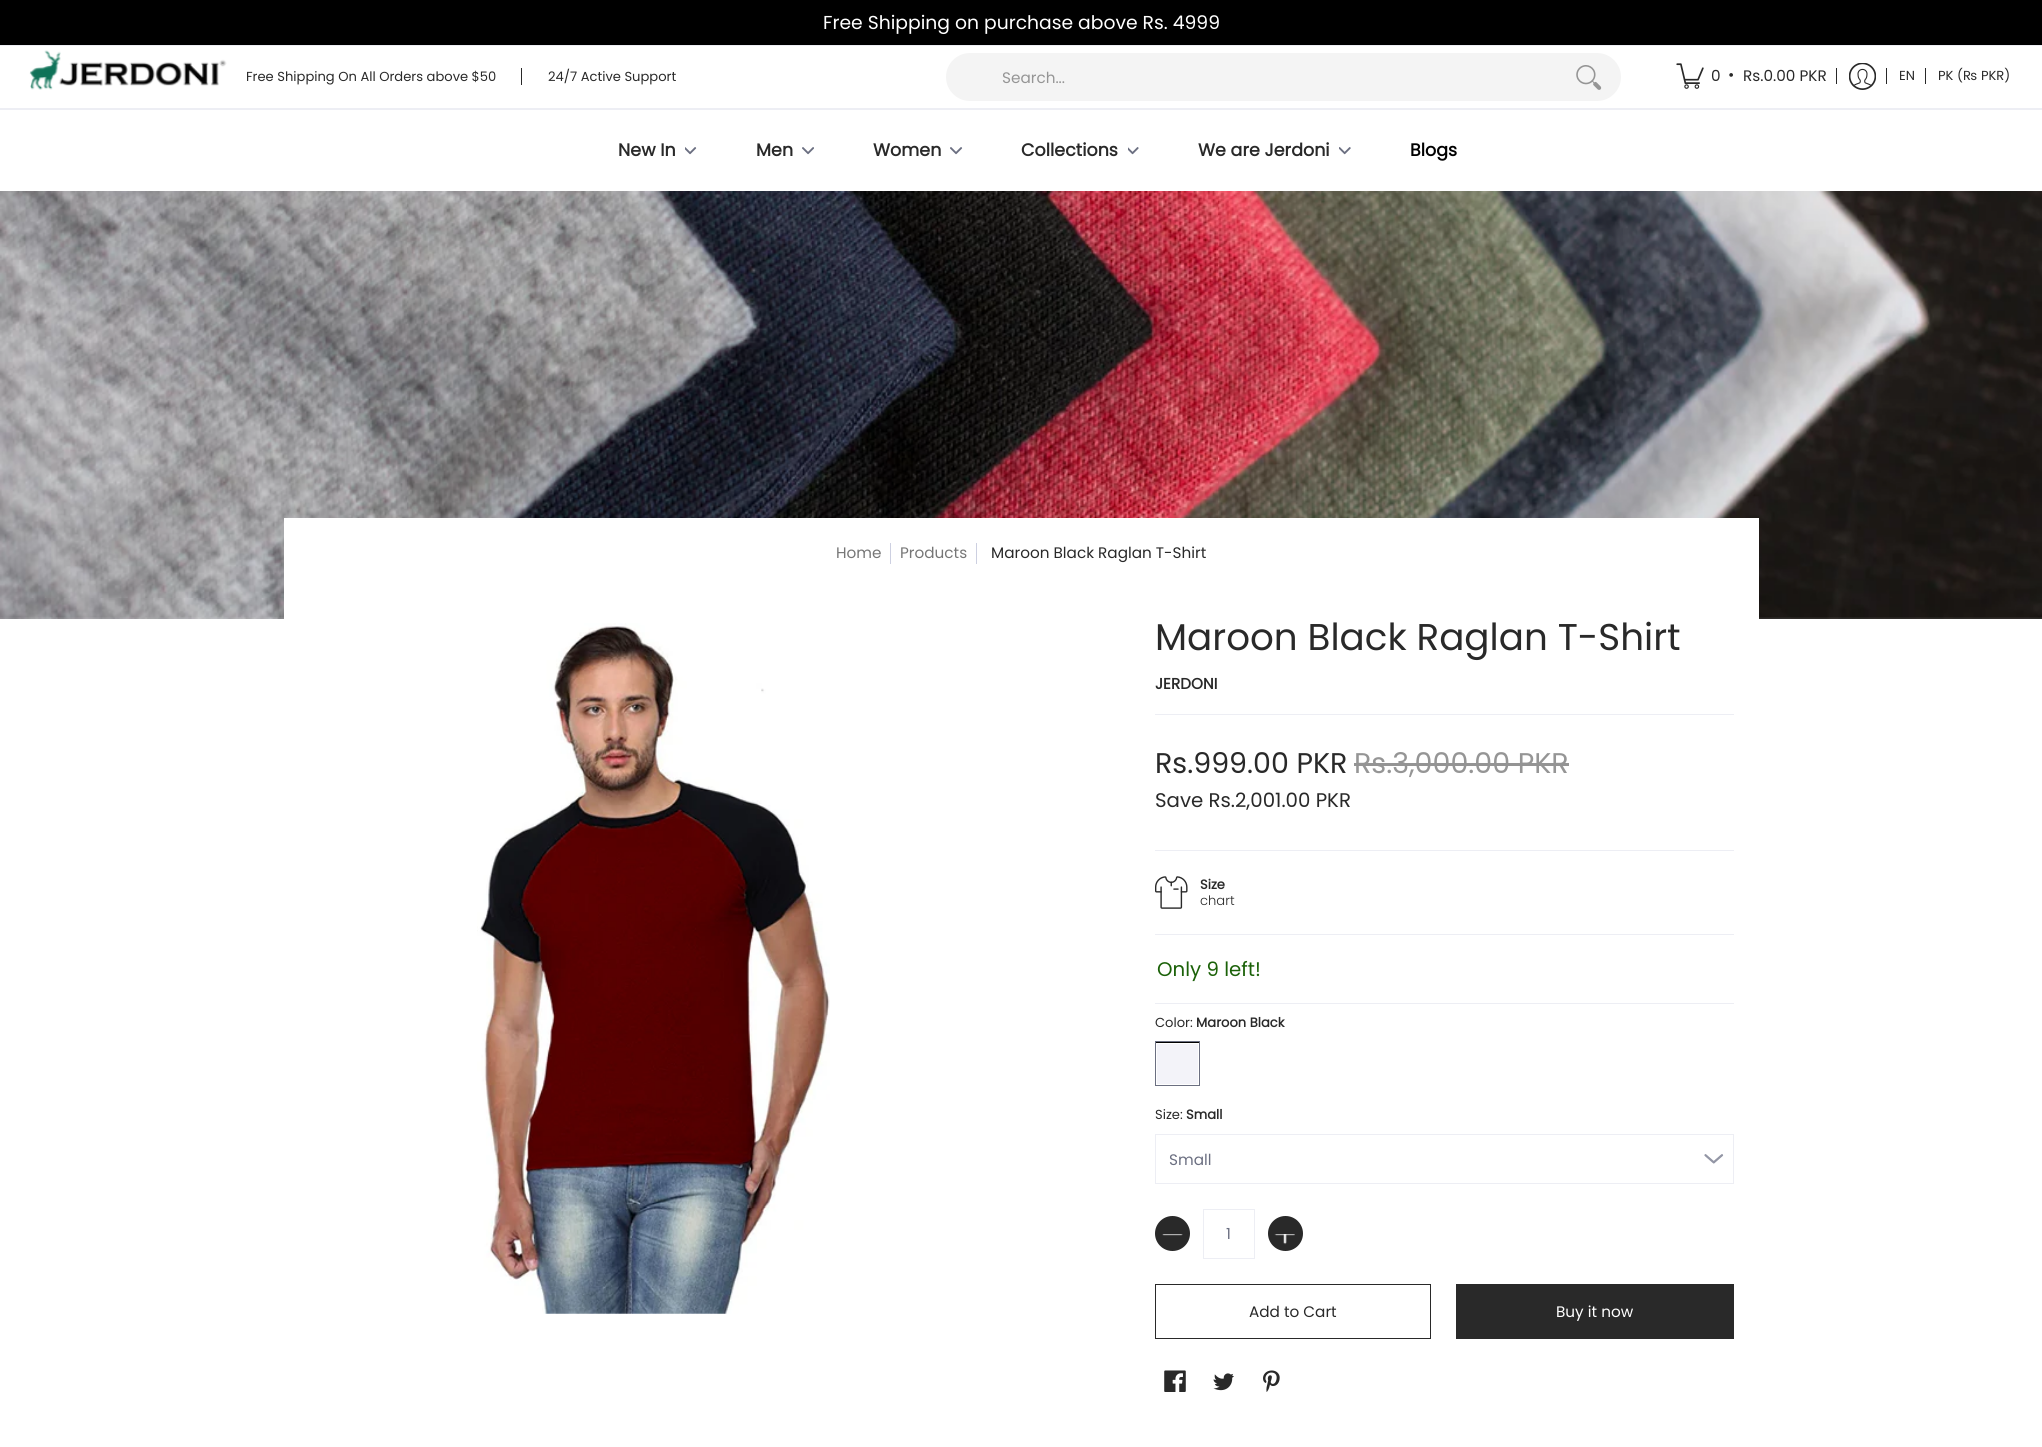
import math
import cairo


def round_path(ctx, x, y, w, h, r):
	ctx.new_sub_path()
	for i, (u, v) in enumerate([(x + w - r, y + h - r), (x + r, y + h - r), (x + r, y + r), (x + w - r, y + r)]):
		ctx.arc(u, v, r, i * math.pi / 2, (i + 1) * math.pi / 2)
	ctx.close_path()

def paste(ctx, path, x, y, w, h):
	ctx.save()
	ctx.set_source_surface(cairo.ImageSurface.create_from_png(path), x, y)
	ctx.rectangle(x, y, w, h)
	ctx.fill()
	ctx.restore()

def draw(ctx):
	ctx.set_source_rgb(1, 1, 1)
	ctx.paint()
	ctx.set_source_rgb(0, 0, 0)
	ctx.rectangle(0, 0, 2042, 45)
	ctx.fill()
	ctx.set_source_rgb(0.929, 0.933, 0.957)
	ctx.rectangle(0, 45, 2042, 1)
	ctx.fill()
	ctx.select_font_face('Poppins')
	ctx.set_font_size(18.75)
	ctx.set_source_rgb(1, 1, 1)
	ctx.move_to(823, 29)
	ctx.show_text('Free Shipping on purchase above Rs. 4999')
	ctx.set_source_rgb(0.929, 0.933, 0.957)
	ctx.rectangle(0, 108, 2042, 2)
	ctx.fill()
	paste(ctx, 'media/1.png', 29, 50, 198, 40)
	ctx.set_font_size(13.1)
	ctx.set_source_rgb(0.161, 0.161, 0.161)
	ctx.move_to(246, 81)
	ctx.show_text('Free Shipping On All Orders above $50')
	ctx.rectangle(521, 68, 1, 17)
	ctx.fill()
	ctx.move_to(548, 81)
	ctx.show_text('24/7 Active Support')
	ctx.set_source_rgb(0.957, 0.957, 0.957)
	round_path(ctx, 946, 53, 675, 48, 24)
	ctx.fill()
	ctx.set_font_size(15.25)
	ctx.set_source_rgb(0.584, 0.584, 0.584)
	ctx.move_to(1002, 83)
	ctx.show_text('Search...')
	paste(ctx, 'media/2.png', 1576, 65, 26, 25)
	paste(ctx, 'media/3.png', 1676, 63, 28, 26)
	ctx.set_source_rgb(0.161, 0.161, 0.161)
	for x, y, s in [
		(1711, 81, '0'),
		(1728, 80, '•'),
		(1743, 81, 'Rs.0.00 PKR'),
	]:
		ctx.move_to(x, y)
		ctx.show_text(s)
	ctx.rectangle(1836, 68, 1, 16)
	ctx.fill()
	paste(ctx, 'media/4.png', 1849, 63, 27, 27)
	ctx.rectangle(1886, 68, 1, 16)
	ctx.fill()
	ctx.set_font_size(13.1)
	ctx.move_to(1899, 80)
	ctx.show_text('EN')
	ctx.rectangle(1925, 68, 1, 16)
	ctx.fill()
	ctx.move_to(1938, 80)
	ctx.show_text('PK (₨ PKR)')
	ctx.select_font_face('Poppins', cairo.FONT_SLANT_NORMAL, cairo.FONT_WEIGHT_BOLD)
	ctx.set_font_size(17.5)
	ctx.move_to(618, 156)
	ctx.show_text('New In')
	paste(ctx, 'media/5.png', 685, 147, 12, 8)
	ctx.move_to(756, 156)
	ctx.show_text('Men')
	paste(ctx, 'media/6.png', 802, 147, 12, 8)
	ctx.move_to(873, 156)
	ctx.show_text('Women')
	paste(ctx, 'media/7.png', 950, 147, 13, 8)
	ctx.move_to(1021, 156)
	ctx.show_text('Collections')
	paste(ctx, 'media/8.png', 1128, 147, 11, 8)
	ctx.move_to(1198, 156)
	ctx.show_text('We are Jerdoni')
	paste(ctx, 'media/9.png', 1339, 147, 12, 8)
	ctx.set_source_rgb(0, 0, 0)
	ctx.move_to(1410, 156)
	ctx.show_text('Blogs')
	paste(ctx, 'media/10.png', 0, 191, 2042, 428)
	ctx.set_source_rgb(1, 1, 1)
	ctx.rectangle(284, 518, 1475, 101)
	ctx.fill()
	ctx.select_font_face('Poppins')
	ctx.set_font_size(15.25)
	ctx.set_source_rgb(0.463, 0.463, 0.463)
	ctx.move_to(836, 558)
	ctx.show_text('Home')
	ctx.set_source_rgb(0.804, 0.816, 0.882)
	ctx.rectangle(890, 543, 1, 21)
	ctx.fill()
	ctx.set_source_rgb(0.463, 0.463, 0.463)
	ctx.move_to(900, 558)
	ctx.show_text('Products')
	ctx.set_source_rgb(0.804, 0.816, 0.882)
	ctx.rectangle(976, 543, 1, 21)
	ctx.fill()
	ctx.set_source_rgb(0.161, 0.161, 0.161)
	ctx.move_to(991, 558)
	ctx.show_text('Maroon Black Raglan T-Shirt')
	paste(ctx, 'media/11.png', 477, 623, 353, 691)
	ctx.set_font_size(37.25)
	ctx.move_to(1155, 650)
	ctx.show_text('Maroon Black Raglan T-Shirt')
	ctx.set_source_rgb(0.929, 0.933, 0.957)
	ctx.rectangle(1155, 714, 579, 1)
	ctx.fill()
	ctx.select_font_face('Poppins', cairo.FONT_SLANT_NORMAL, cairo.FONT_WEIGHT_BOLD)
	ctx.set_font_size(15.25)
	ctx.set_source_rgb(0.161, 0.161, 0.161)
	ctx.move_to(1155, 689)
	ctx.show_text('JERDONI')
	ctx.set_source_rgb(0.929, 0.933, 0.957)
	ctx.rectangle(1155, 850, 579, 1)
	ctx.fill()
	ctx.select_font_face('Poppins')
	ctx.set_font_size(28.5)
	ctx.set_source_rgb(0.161, 0.161, 0.161)
	ctx.move_to(1155, 773)
	ctx.show_text('Rs.999.00 PKR')
	ctx.set_source_rgb(0.584, 0.584, 0.584)
	ctx.move_to(1354, 773)
	ctx.show_text('Rs.3,000.00 PKR')
	ctx.set_source_rgb(0.58, 0.58, 0.58)
	ctx.rectangle(1354, 763, 215, 3)
	ctx.fill()
	ctx.set_font_size(19.75)
	ctx.set_source_rgb(0.161, 0.161, 0.161)
	ctx.move_to(1155, 807)
	ctx.show_text('Save Rs.2,001.00 PKR')
	ctx.set_source_rgb(0.929, 0.933, 0.957)
	ctx.rectangle(1155, 934, 579, 1)
	ctx.fill()
	paste(ctx, 'media/12.png', 1155, 876, 33, 33)
	ctx.select_font_face('Poppins', cairo.FONT_SLANT_NORMAL, cairo.FONT_WEIGHT_BOLD)
	ctx.set_font_size(13.1)
	ctx.set_source_rgb(0.161, 0.161, 0.161)
	ctx.move_to(1200, 889)
	ctx.show_text('Size')
	ctx.select_font_face('Poppins Light')
	ctx.move_to(1200, 905)
	ctx.show_text('chart')
	ctx.set_source_rgb(0.929, 0.933, 0.957)
	ctx.rectangle(1155, 1003, 579, 1)
	ctx.fill()
	ctx.select_font_face('Poppins')
	ctx.set_font_size(19.75)
	ctx.set_source_rgb(0.106, 0.38, 0.035)
	ctx.move_to(1157, 976)
	ctx.show_text('Only 9 left!')
	ctx.set_font_size(13.1)
	ctx.set_source_rgb(0.161, 0.161, 0.161)
	ctx.move_to(1155, 1027)
	ctx.show_text('Color:')
	ctx.select_font_face('Poppins', cairo.FONT_SLANT_NORMAL, cairo.FONT_WEIGHT_BOLD)
	ctx.move_to(1196, 1027)
	ctx.show_text('Maroon Black')
	ctx.set_source_rgb(0, 0, 0)
	ctx.rectangle(1156, 1042, 43, 1)
	ctx.fill()
	ctx.rectangle(1155.5, 1041.5, 44, 44)
	ctx.set_source_rgb(0.42, 0.435, 0.506)
	ctx.set_line_width(1)
	ctx.stroke()
	ctx.set_source_rgb(0.953, 0.953, 0.973)
	ctx.rectangle(1157, 1044, 41, 40)
	ctx.fill()
	ctx.rectangle(1155.5, 1134.5, 578, 49)
	ctx.set_source_rgb(0.929, 0.933, 0.957)
	ctx.stroke()
	ctx.select_font_face('Poppins')
	ctx.set_source_rgb(0.161, 0.161, 0.161)
	ctx.move_to(1155, 1119)
	ctx.show_text('Size:')
	ctx.select_font_face('Poppins', cairo.FONT_SLANT_NORMAL, cairo.FONT_WEIGHT_BOLD)
	ctx.move_to(1186, 1119)
	ctx.show_text('Small')
	ctx.select_font_face('Poppins')
	ctx.set_font_size(15.25)
	ctx.set_source_rgb(0.42, 0.435, 0.506)
	ctx.move_to(1169, 1165)
	ctx.show_text('Small')
	paste(ctx, 'media/13.png', 1704, 1154, 20, 10)
	ctx.set_source_rgb(0.161, 0.161, 0.161)
	ctx.arc(1172.5, 1233.5, 17.5, 0, 2 * math.pi)
	ctx.fill()
	paste(ctx, 'media/14.png', 1162, 1234, 21, 2)
	ctx.rectangle(1203.5, 1209.5, 51, 49)
	ctx.set_source_rgb(0.929, 0.933, 0.957)
	ctx.stroke()
	ctx.set_source_rgb(0.42, 0.435, 0.506)
	ctx.move_to(1226, 1239)
	ctx.show_text('1')
	ctx.set_source_rgb(0.161, 0.161, 0.161)
	ctx.new_path()
	ctx.arc(1285.5, 1233.5, 17.5, 0, 2 * math.pi)
	ctx.fill()
	paste(ctx, 'media/15.png', 1274, 1234, 21, 11)
	ctx.rectangle(1155.5, 1284.5, 275, 54)
	ctx.stroke()
	ctx.move_to(1249, 1317)
	ctx.show_text('Add to Cart')
	ctx.rectangle(1456, 1284, 278, 55)
	ctx.fill()
	ctx.set_source_rgb(1, 1, 1)
	ctx.move_to(1556, 1317)
	ctx.show_text('Buy it now')
	paste(ctx, 'media/16.png', 1164, 1370, 22, 22)
	paste(ctx, 'media/17.png', 1213, 1373, 21, 18)
	paste(ctx, 'media/18.png', 1263, 1370, 17, 22)


surface = cairo.ImageSurface(cairo.FORMAT_RGB24, 2042, 1447)
ctx = cairo.Context(surface)
options = cairo.FontOptions()
options.set_hint_metrics(cairo.HINT_METRICS_OFF)
options.set_hint_style(cairo.HINT_STYLE_NONE)
ctx.set_font_options(options)
ctx.set_miter_limit(4)
draw(ctx)
surface.write_to_png('image.png')
